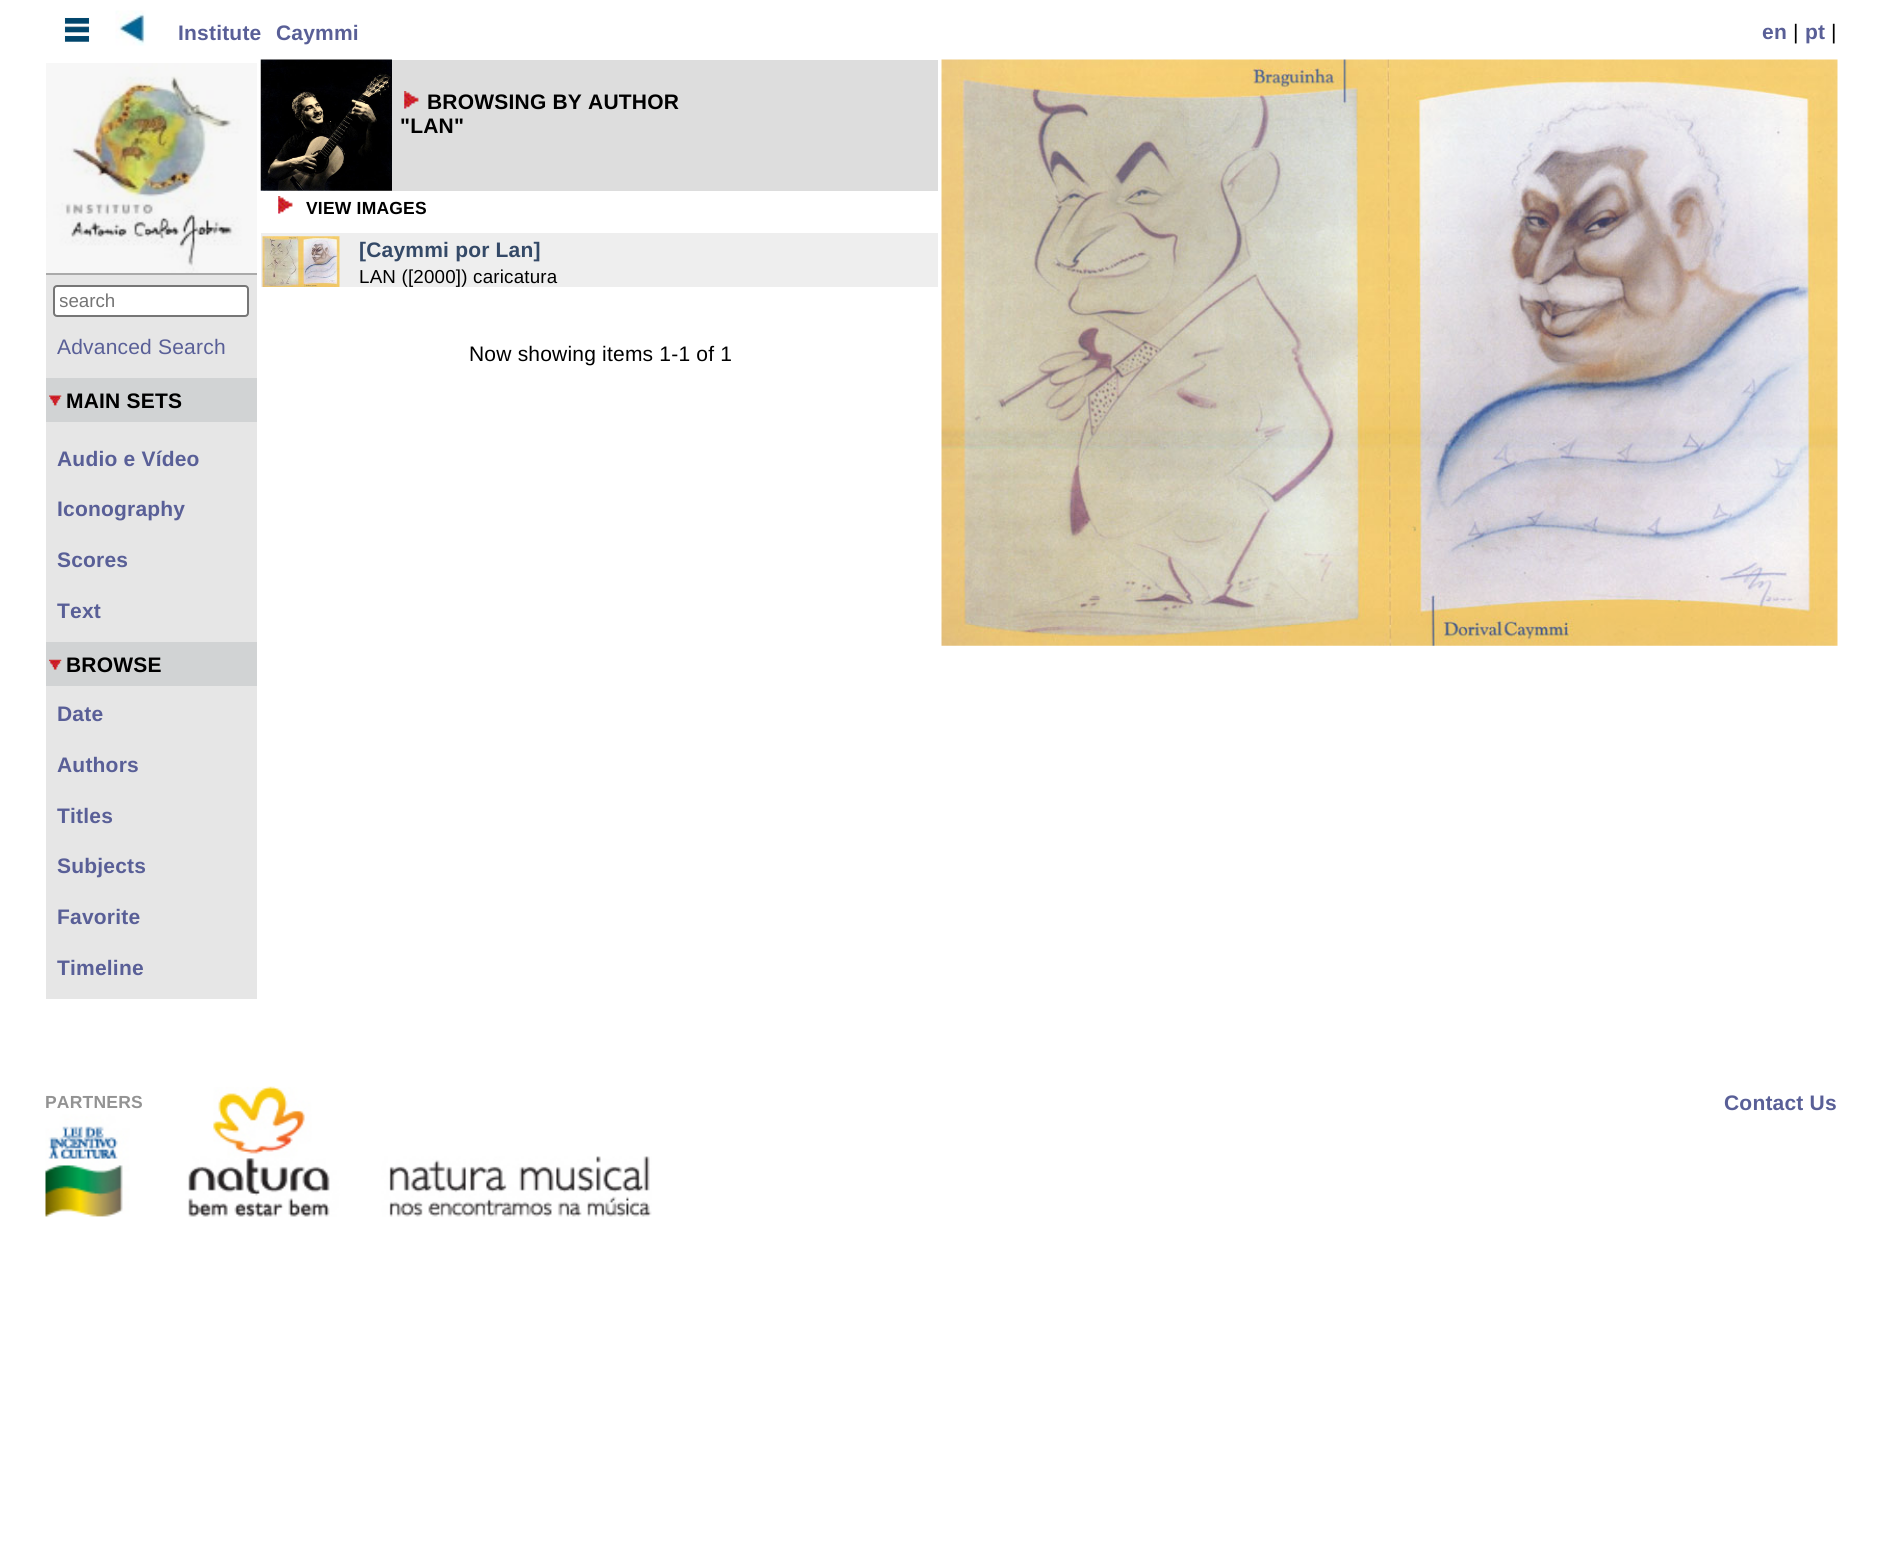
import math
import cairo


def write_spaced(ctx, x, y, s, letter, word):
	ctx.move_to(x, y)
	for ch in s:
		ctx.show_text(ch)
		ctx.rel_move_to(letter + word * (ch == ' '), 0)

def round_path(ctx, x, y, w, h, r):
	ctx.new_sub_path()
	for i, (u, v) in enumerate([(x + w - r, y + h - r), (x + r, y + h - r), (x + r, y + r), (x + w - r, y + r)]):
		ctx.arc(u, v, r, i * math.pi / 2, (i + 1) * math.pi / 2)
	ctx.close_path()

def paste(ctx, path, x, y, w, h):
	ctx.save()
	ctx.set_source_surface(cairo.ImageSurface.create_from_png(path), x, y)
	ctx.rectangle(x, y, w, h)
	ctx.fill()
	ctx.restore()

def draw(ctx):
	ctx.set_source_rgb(1, 1, 1)
	ctx.paint()
	paste(ctx, 'media/1.png', 64, 17, 26, 25)
	paste(ctx, 'media/2.png', 115, 10, 31, 36)
	ctx.select_font_face('Liberation Sans', cairo.FONT_SLANT_NORMAL, cairo.FONT_WEIGHT_BOLD)
	ctx.set_font_size(21)
	ctx.set_source_rgb(0.349, 0.373, 0.592)
	for x, y, s in [
		(178, 40, 'Institute'),
		(276, 40, 'Caymmi'),
		(1762, 39, 'en'),
	]:
		write_spaced(ctx, x, y, s, 0.2, 0)
	ctx.select_font_face('Liberation Sans')
	ctx.set_source_rgb(0, 0, 0)
	write_spaced(ctx, 1793, 39, '|', 0.2, 0)
	ctx.select_font_face('Liberation Sans', cairo.FONT_SLANT_NORMAL, cairo.FONT_WEIGHT_BOLD)
	ctx.set_source_rgb(0.349, 0.373, 0.592)
	write_spaced(ctx, 1805, 39, 'pt', 0.2, 0)
	ctx.select_font_face('Liberation Sans')
	ctx.set_source_rgb(0, 0, 0)
	write_spaced(ctx, 1831, 39, '|', 0.2, 0)
	ctx.set_source_rgb(0.867, 0.867, 0.867)
	ctx.rectangle(261, 60, 677, 131)
	ctx.fill()
	paste(ctx, 'media/3.png', 260, 59, 132, 132)
	paste(ctx, 'media/4.png', 941, 59, 897, 587)
	paste(ctx, 'media/5.png', 404, 91, 15, 18)
	ctx.select_font_face('Liberation Sans', cairo.FONT_SLANT_NORMAL, cairo.FONT_WEIGHT_BOLD)
	ctx.set_source_rgb(0, 0, 0)
	write_spaced(ctx, 427, 109, 'BROWSING BY AUTHOR', 0.2, 0)
	write_spaced(ctx, 400, 133, '"LAN"', 0.2, 0)
	paste(ctx, 'media/6.png', 278, 196, 15, 18)
	ctx.set_font_size(17.5)
	write_spaced(ctx, 306, 214, 'VIEW IMAGES', 0.2, 0)
	ctx.set_source_rgb(0.933, 0.933, 0.933)
	ctx.rectangle(261, 233, 677, 54)
	ctx.fill()
	paste(ctx, 'media/7.png', 262, 236, 78, 51)
	ctx.set_font_size(21)
	ctx.set_source_rgb(0.204, 0.286, 0.404)
	write_spaced(ctx, 359, 257, '[Caymmi por Lan]', 0.2, 0)
	ctx.select_font_face('Liberation Sans')
	ctx.set_font_size(18.75)
	ctx.set_source_rgb(0, 0, 0)
	write_spaced(ctx, 359, 283, 'LAN ([2000]) caricatura', 0.2, 0)
	ctx.set_font_size(21)
	write_spaced(ctx, 469, 361, 'Now showing items 1-1 of 1', 0.2, 0)
	ctx.set_source_rgb(0.902, 0.902, 0.902)
	ctx.rectangle(46, 275, 211, 724)
	ctx.fill()
	ctx.set_source_rgb(0.667, 0.667, 0.667)
	ctx.rectangle(46, 63, 211, 212)
	ctx.fill()
	paste(ctx, 'media/8.png', 46, 63, 211, 210)
	ctx.set_source_rgb(1, 1, 1)
	round_path(ctx, 54, 286, 194, 30, 3)
	ctx.fill_preserve()
	ctx.set_source_rgb(0.463, 0.463, 0.463)
	ctx.stroke()
	ctx.save()
	ctx.rectangle(60, 291, 182, 21)
	ctx.clip()
	ctx.set_font_size(18.75)
	ctx.set_source_rgb(0.459, 0.459, 0.459)
	ctx.move_to(59, 307)
	ctx.show_text('search')
	ctx.restore()
	ctx.set_source_rgb(0.349, 0.373, 0.592)
	write_spaced(ctx, 57, 354, 'Advanced Search', 0.2, 0)
	ctx.set_source_rgb(0.82, 0.827, 0.831)
	ctx.rectangle(46, 378, 211, 44)
	ctx.fill()
	paste(ctx, 'media/9.png', 49, 395, 13, 11)
	ctx.select_font_face('Liberation Sans', cairo.FONT_SLANT_NORMAL, cairo.FONT_WEIGHT_BOLD)
	ctx.set_source_rgb(0, 0, 0)
	write_spaced(ctx, 66, 408, 'MAIN SETS', 0.2, 0)
	ctx.set_source_rgb(0.349, 0.373, 0.592)
	for x, y, s in [
		(57, 466, 'Audio e Vídeo'),
		(57, 516, 'Iconography'),
		(57, 567, 'Scores'),
		(57, 618, 'Text'),
	]:
		write_spaced(ctx, x, y, s, 0.2, 0)
	ctx.set_source_rgb(0.82, 0.827, 0.831)
	ctx.rectangle(46, 642, 211, 44)
	ctx.fill()
	paste(ctx, 'media/10.png', 49, 659, 13, 11)
	ctx.set_source_rgb(0, 0, 0)
	write_spaced(ctx, 66, 672, 'BROWSE', 0.2, 0)
	ctx.set_source_rgb(0.349, 0.373, 0.592)
	for x, y, s in [
		(57, 721, 'Date'),
		(57, 772, 'Authors'),
		(57, 823, 'Titles'),
		(57, 873, 'Subjects'),
		(57, 924, 'Favorite'),
		(57, 975, 'Timeline'),
	]:
		write_spaced(ctx, x, y, s, 0.2, 0)
	paste(ctx, 'media/11.png', 45, 1086, 607, 131)
	ctx.set_font_size(17.5)
	ctx.set_source_rgb(0.576, 0.576, 0.576)
	write_spaced(ctx, 45, 1108, 'PARTNERS', 0.2, 0)
	ctx.set_font_size(21)
	ctx.set_source_rgb(0.349, 0.373, 0.592)
	write_spaced(ctx, 1724, 1110, 'Contact Us', 0.2, 0)


surface = cairo.ImageSurface(cairo.FORMAT_RGB24, 1880, 1558)
ctx = cairo.Context(surface)
options = cairo.FontOptions()
options.set_hint_metrics(cairo.HINT_METRICS_OFF)
options.set_hint_style(cairo.HINT_STYLE_NONE)
ctx.set_font_options(options)
ctx.set_miter_limit(4)
draw(ctx)
surface.write_to_png('image.png')
